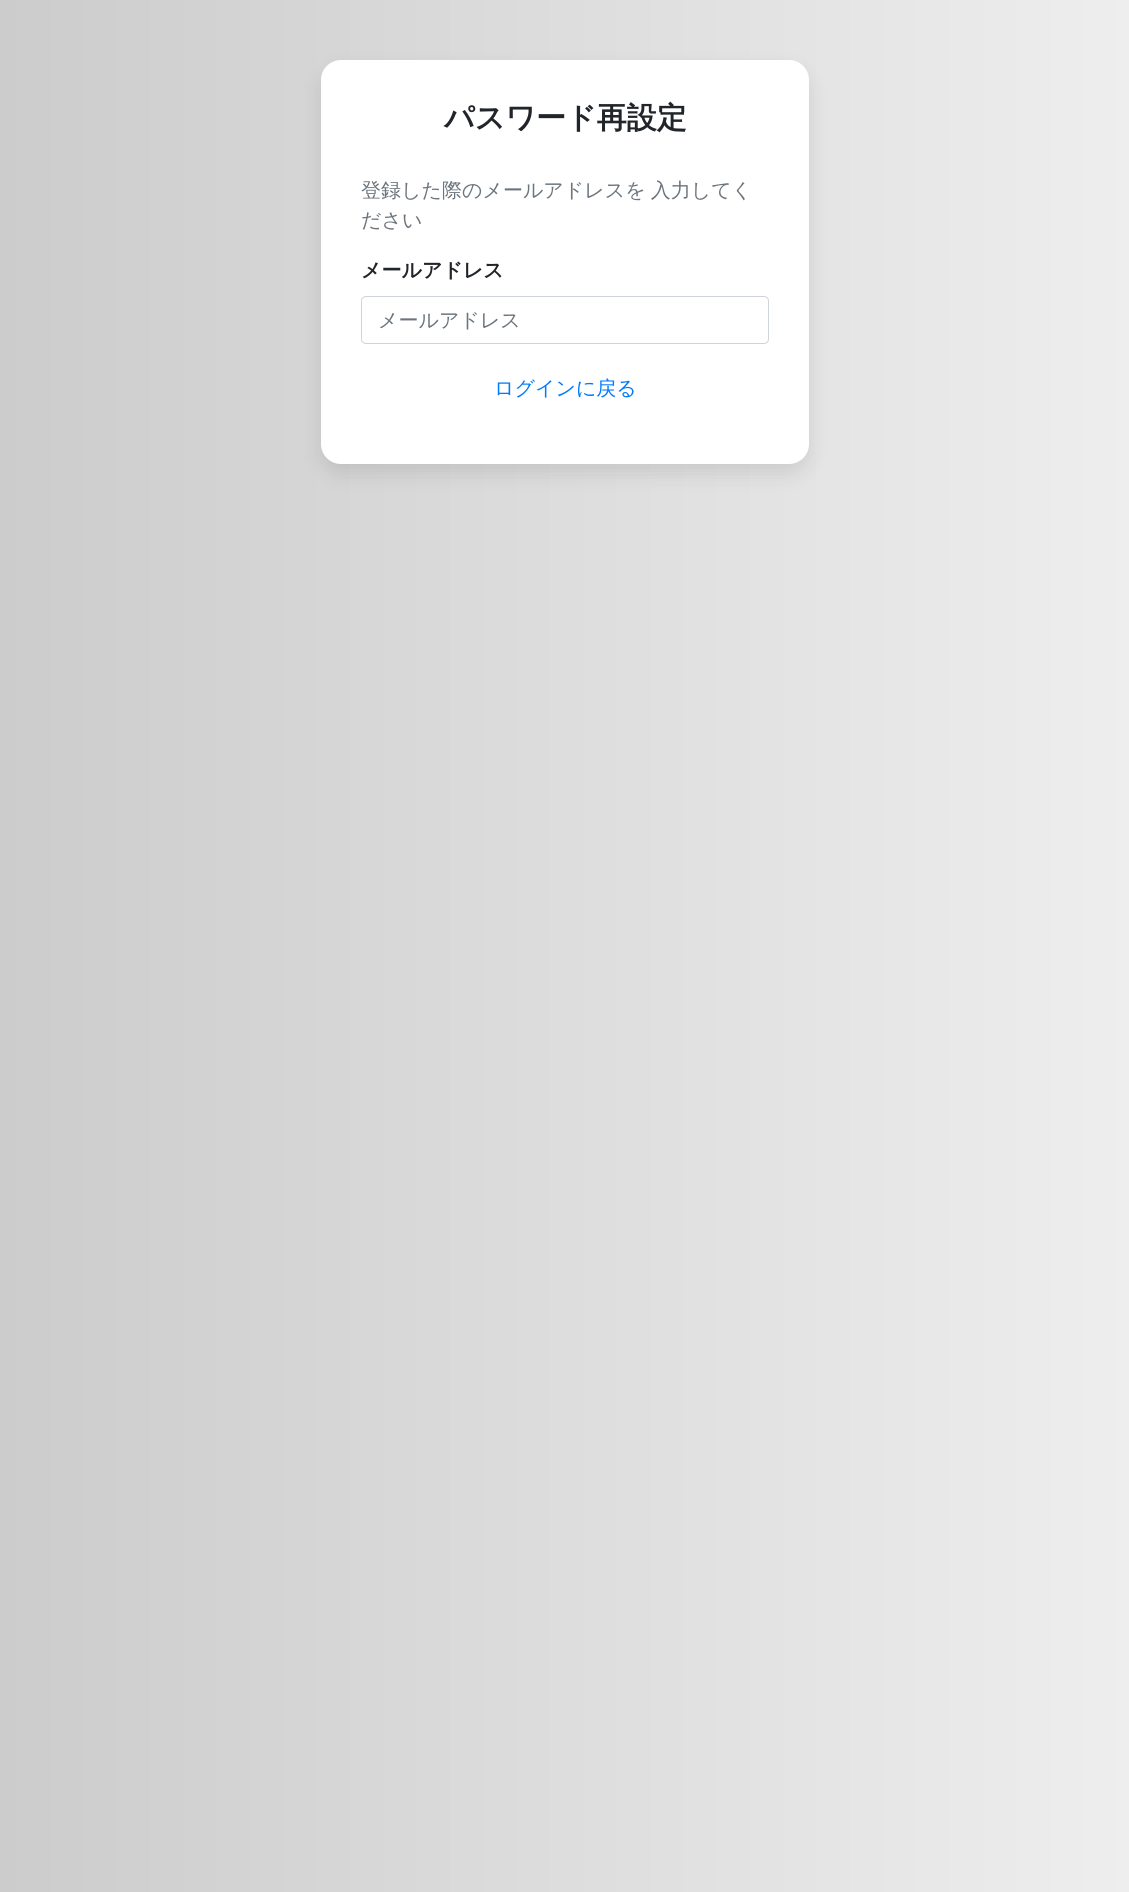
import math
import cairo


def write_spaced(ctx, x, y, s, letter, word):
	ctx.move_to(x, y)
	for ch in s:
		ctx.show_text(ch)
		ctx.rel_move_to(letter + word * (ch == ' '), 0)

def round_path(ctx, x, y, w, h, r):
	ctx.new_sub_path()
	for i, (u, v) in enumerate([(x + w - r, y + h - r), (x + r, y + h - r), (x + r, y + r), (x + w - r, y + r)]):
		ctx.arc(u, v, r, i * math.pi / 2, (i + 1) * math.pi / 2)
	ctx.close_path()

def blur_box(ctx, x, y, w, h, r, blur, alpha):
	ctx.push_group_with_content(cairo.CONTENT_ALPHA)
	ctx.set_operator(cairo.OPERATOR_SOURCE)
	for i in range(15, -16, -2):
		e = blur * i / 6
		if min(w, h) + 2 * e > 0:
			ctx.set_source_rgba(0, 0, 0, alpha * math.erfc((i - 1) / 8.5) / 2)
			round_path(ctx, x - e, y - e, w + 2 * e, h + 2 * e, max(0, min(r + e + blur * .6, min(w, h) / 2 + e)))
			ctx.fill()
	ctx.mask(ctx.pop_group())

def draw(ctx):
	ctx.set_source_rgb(1, 1, 1)
	ctx.paint()
	gradient = cairo.LinearGradient(0, 262, 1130, 262)
	gradient.add_color_stop_rgba(0, 0.8, 0.8, 0.8, 1)
	gradient.add_color_stop_rgba(1, 0.933, 0.933, 0.933, 1)
	ctx.set_source(gradient)
	ctx.rectangle(0, 0, 1129, 1892)
	ctx.fill()
	ctx.set_source_rgb(0, 0, 0)
	blur_box(ctx, 321, 70, 488, 404, 20, 10, 0.1)
	ctx.set_source_rgb(1, 1, 1)
	round_path(ctx, 321, 60, 488, 404, 20)
	ctx.fill()
	ctx.select_font_face('WenQuanYi Zen Hei', cairo.FONT_SLANT_NORMAL, cairo.FONT_WEIGHT_BOLD)
	ctx.set_font_size(30)
	ctx.set_source_rgb(0.129, 0.145, 0.161)
	ctx.move_to(444, 128)
	ctx.show_text('パスワード再設定')
	ctx.select_font_face('WenQuanYi Zen Hei Medium')
	ctx.set_font_size(20)
	ctx.set_source_rgb(0.424, 0.459, 0.49)
	write_spaced(ctx, 361, 197, '登録した際のメールアドレスを 入力してく', 0, -1)
	ctx.move_to(361, 227)
	ctx.show_text('ださい')
	ctx.select_font_face('WenQuanYi Zen Hei', cairo.FONT_SLANT_NORMAL, cairo.FONT_WEIGHT_BOLD)
	ctx.set_source_rgb(0.129, 0.145, 0.161)
	ctx.move_to(361, 277)
	ctx.show_text('メールアドレス')
	round_path(ctx, 361.5, 296.5, 407, 47, 4.5)
	ctx.set_source_rgb(0.808, 0.831, 0.855)
	ctx.set_line_width(1)
	ctx.stroke()
	ctx.select_font_face('WenQuanYi Zen Hei Medium')
	ctx.set_source_rgb(0.424, 0.459, 0.49)
	ctx.move_to(378, 327)
	ctx.show_text('メールアドレス')
	ctx.set_source_rgb(0, 0.482, 1)
	ctx.move_to(494, 395)
	ctx.show_text('ログインに戻る')


surface = cairo.ImageSurface(cairo.FORMAT_RGB24, 1129, 1892)
ctx = cairo.Context(surface)
options = cairo.FontOptions()
options.set_hint_metrics(cairo.HINT_METRICS_OFF)
options.set_hint_style(cairo.HINT_STYLE_NONE)
ctx.set_font_options(options)
ctx.set_miter_limit(4)
draw(ctx)
surface.write_to_png('image.png')
